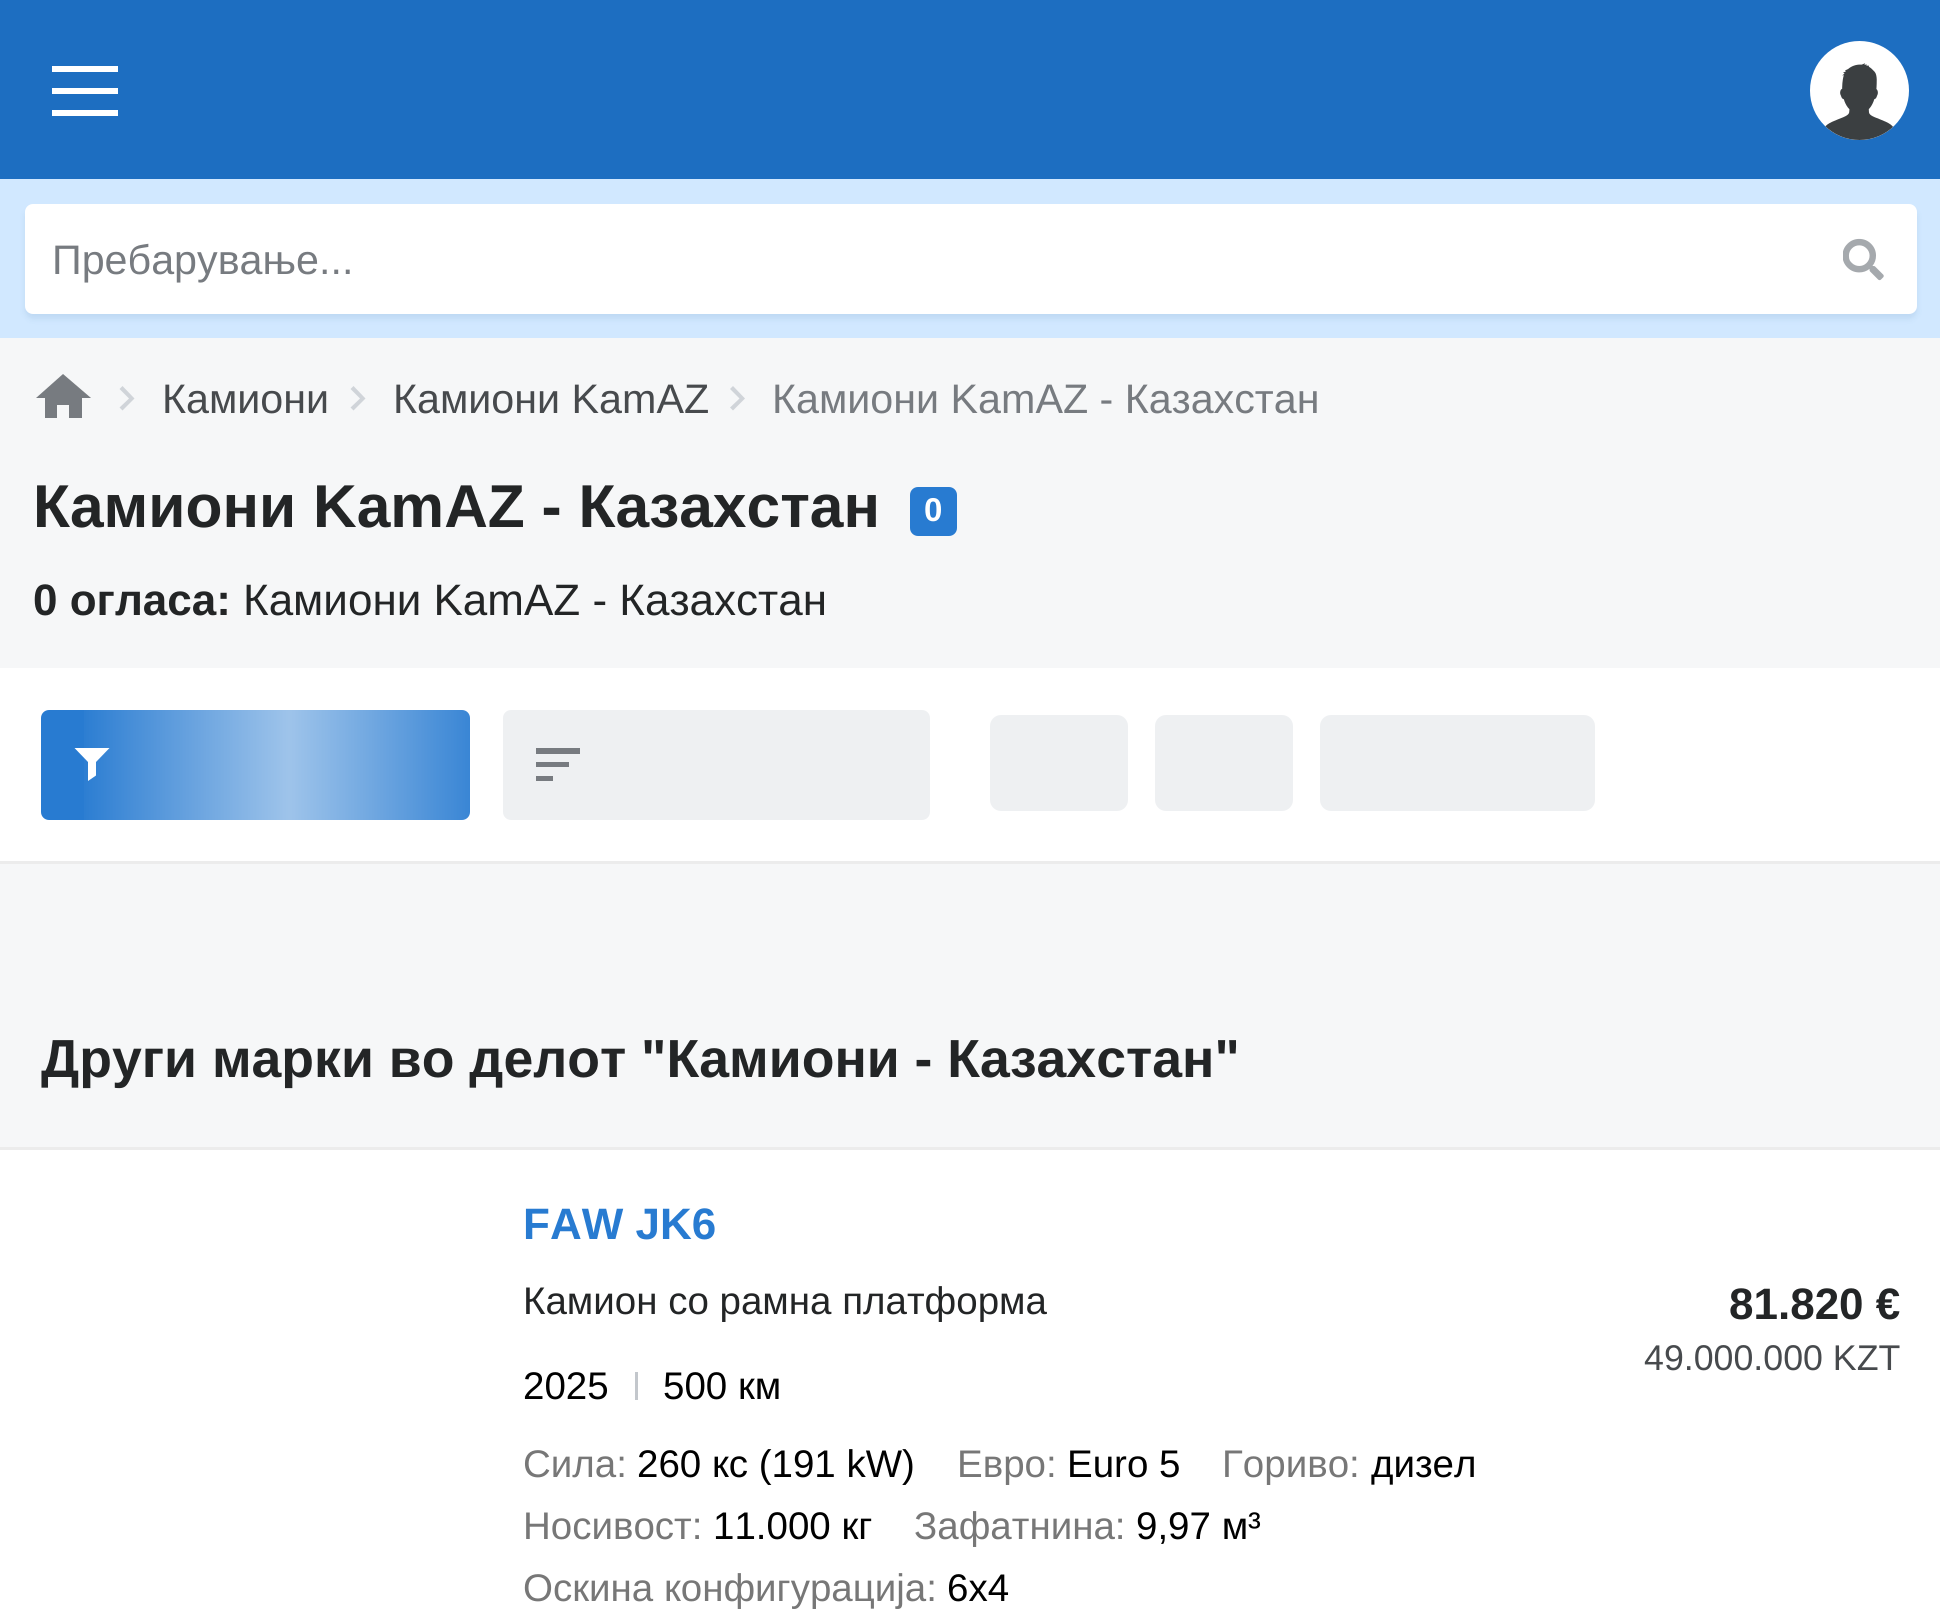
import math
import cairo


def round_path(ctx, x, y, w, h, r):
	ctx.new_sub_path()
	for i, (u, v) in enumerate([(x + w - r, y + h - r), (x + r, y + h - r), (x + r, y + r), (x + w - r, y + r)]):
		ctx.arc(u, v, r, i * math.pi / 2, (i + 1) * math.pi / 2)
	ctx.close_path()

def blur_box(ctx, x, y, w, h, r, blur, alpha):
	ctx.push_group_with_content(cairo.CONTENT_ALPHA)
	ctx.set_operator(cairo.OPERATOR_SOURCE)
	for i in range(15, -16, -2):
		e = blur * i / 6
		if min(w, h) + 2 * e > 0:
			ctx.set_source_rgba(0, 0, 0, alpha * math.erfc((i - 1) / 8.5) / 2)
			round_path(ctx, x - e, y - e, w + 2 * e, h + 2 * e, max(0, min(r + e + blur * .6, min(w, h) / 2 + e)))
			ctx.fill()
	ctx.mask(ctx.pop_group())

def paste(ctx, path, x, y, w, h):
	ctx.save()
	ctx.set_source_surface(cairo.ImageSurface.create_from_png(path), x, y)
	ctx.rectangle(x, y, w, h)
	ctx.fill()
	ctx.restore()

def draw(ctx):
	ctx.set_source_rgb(0.961, 0.965, 0.969)
	ctx.paint()
	ctx.set_source_rgb(0.114, 0.431, 0.757)
	ctx.rectangle(0, 0, 1940, 179)
	ctx.fill()
	ctx.set_source_rgb(1, 1, 1)
	ctx.new_path()
	ctx.move_to(52, 66)
	ctx.line_to(52, 72)
	ctx.line_to(118, 72)
	ctx.line_to(118, 66)
	ctx.close_path()
	ctx.move_to(52, 88)
	ctx.line_to(52, 94)
	ctx.line_to(118, 94)
	ctx.line_to(118, 88)
	ctx.close_path()
	ctx.move_to(52, 110)
	ctx.line_to(52, 116)
	ctx.line_to(118, 116)
	ctx.line_to(118, 110)
	ctx.close_path()
	ctx.fill()
	ctx.arc(1859.5, 90.5, 49.5, 0, 2 * math.pi)
	ctx.fill()
	paste(ctx, 'media/1.png', 1825, 63, 68, 77)
	ctx.set_source_rgb(0.82, 0.91, 1)
	ctx.rectangle(0, 179, 1940, 159)
	ctx.fill()
	ctx.set_source_rgb(0.09, 0.318, 0.549)
	blur_box(ctx, 25, 209, 1892, 110, 8, 3, 0.1)
	ctx.set_source_rgb(1, 1, 1)
	round_path(ctx, 25, 204, 1892, 110, 8)
	ctx.fill()
	ctx.select_font_face('Liberation Sans')
	ctx.set_font_size(41.25)
	ctx.set_source_rgb(0.467, 0.482, 0.502)
	ctx.move_to(52, 274)
	ctx.show_text('Пребарување...')
	paste(ctx, 'media/2.png', 1843, 238, 41, 43)
	ctx.save()
	ctx.rectangle(36, 374, 55, 44)
	ctx.clip()
	ctx.new_path()
	ctx.move_to(57, 420)
	ctx.line_to(57, 405)
	ctx.line_to(69, 405)
	ctx.line_to(69, 420)
	ctx.line_to(82, 420)
	ctx.line_to(82, 398)
	ctx.line_to(91, 398)
	ctx.line_to(63, 374)
	ctx.line_to(36, 398)
	ctx.line_to(45, 398)
	ctx.line_to(45, 420)
	ctx.close_path()
	ctx.fill()
	ctx.restore()
	ctx.set_source_rgb(0.816, 0.831, 0.851)
	ctx.new_path()
	ctx.move_to(119.5, 407.5)
	ctx.line_to(129, 398.5)
	ctx.line_to(119.5, 389)
	ctx.line_to(122.5, 386)
	ctx.line_to(134.5, 398.5)
	ctx.line_to(122.5, 410.5)
	ctx.close_path()
	ctx.fill()
	ctx.set_source_rgb(0.278, 0.29, 0.302)
	ctx.move_to(162, 413)
	ctx.show_text('Камиони')
	ctx.set_source_rgb(0.816, 0.831, 0.851)
	ctx.new_path()
	ctx.move_to(350.5, 407.5)
	ctx.line_to(360, 398.5)
	ctx.line_to(350.5, 389)
	ctx.line_to(353.5, 386)
	ctx.line_to(365.5, 398.5)
	ctx.line_to(353.5, 410.5)
	ctx.close_path()
	ctx.fill()
	ctx.set_source_rgb(0.278, 0.29, 0.302)
	ctx.move_to(393, 413)
	ctx.show_text('Камиони KamAZ')
	ctx.set_source_rgb(0.816, 0.831, 0.851)
	ctx.new_path()
	ctx.move_to(730, 407.5)
	ctx.line_to(739.5, 398.5)
	ctx.line_to(730, 389)
	ctx.line_to(733, 386)
	ctx.line_to(745, 398.5)
	ctx.line_to(733, 410.5)
	ctx.close_path()
	ctx.fill()
	ctx.set_source_rgb(0.467, 0.482, 0.502)
	ctx.move_to(772, 413)
	ctx.show_text('Камиони KamAZ - Казахстан')
	ctx.select_font_face('Liberation Sans', cairo.FONT_SLANT_NORMAL, cairo.FONT_WEIGHT_BOLD)
	ctx.set_font_size(60.5)
	ctx.set_source_rgb(0.137, 0.145, 0.149)
	ctx.move_to(33, 527)
	ctx.show_text('Камиони KamAZ - Казахстан')
	ctx.set_source_rgb(0.157, 0.482, 0.82)
	round_path(ctx, 910, 487, 47, 49, 8)
	ctx.fill()
	ctx.set_font_size(33)
	ctx.set_source_rgb(1, 1, 1)
	ctx.move_to(924, 521)
	ctx.show_text('0')
	ctx.set_font_size(44)
	ctx.set_source_rgb(0.137, 0.145, 0.149)
	ctx.move_to(33, 615)
	ctx.show_text('0 огласа:')
	ctx.select_font_face('Liberation Sans')
	ctx.move_to(243, 615)
	ctx.show_text('Камиони KamAZ - Казахстан')
	ctx.set_source_rgb(1, 1, 1)
	ctx.rectangle(0, 668, 1940, 193)
	ctx.fill()
	ctx.set_source_rgb(0.157, 0.482, 0.82)
	round_path(ctx, 41, 710, 429, 110, 8)
	ctx.fill()
	ctx.set_source_rgb(1, 1, 1)
	ctx.set_fill_rule(cairo.FILL_RULE_EVEN_ODD)
	ctx.new_path()
	ctx.move_to(96, 762)
	ctx.line_to(109.5, 748)
	ctx.line_to(74.5, 748)
	ctx.line_to(88, 762)
	ctx.line_to(88, 781)
	ctx.line_to(96, 775.5)
	ctx.close_path()
	ctx.fill()
	ctx.set_source_rgb(0.933, 0.941, 0.949)
	round_path(ctx, 503, 710, 427, 110, 8)
	ctx.fill()
	gradient = cairo.LinearGradient(76, 765, 502, 765)
	gradient.add_color_stop_rgba(0, 1, 1, 1, 0)
	gradient.add_color_stop_rgba(0.5, 1, 1, 1, 0.55)
	gradient.add_color_stop_rgba(1, 1, 1, 1, 0)
	ctx.set_source(gradient)
	ctx.rectangle(84, 710, 386, 110)
	ctx.fill()
	ctx.save()
	ctx.set_fill_rule(cairo.FILL_RULE_WINDING)
	ctx.rectangle(536, 748, 44, 33)
	ctx.clip()
	ctx.set_source_rgb(0.467, 0.482, 0.502)
	ctx.new_path()
	ctx.move_to(536, 781)
	ctx.line_to(553, 781)
	ctx.line_to(553, 776)
	ctx.line_to(536, 776)
	ctx.close_path()
	ctx.move_to(536, 748)
	ctx.line_to(536, 754)
	ctx.line_to(586, 754)
	ctx.line_to(586, 748)
	ctx.close_path()
	ctx.move_to(536, 767)
	ctx.line_to(569, 767)
	ctx.line_to(569, 762)
	ctx.line_to(536, 762)
	ctx.close_path()
	ctx.fill()
	ctx.restore()
	ctx.set_source_rgb(0.933, 0.941, 0.949)
	round_path(ctx, 990, 715, 138, 96, 11)
	ctx.fill()
	round_path(ctx, 1155, 715, 138, 96, 11)
	ctx.fill()
	round_path(ctx, 1320, 715, 275, 96, 11)
	ctx.fill()
	ctx.set_source_rgb(1, 1, 1)
	ctx.rectangle(0, 1150, 1940, 466)
	ctx.fill()
	ctx.set_source_rgb(0.922, 0.922, 0.925)
	ctx.rectangle(0, 861, 1940, 3)
	ctx.fill()
	ctx.select_font_face('Liberation Sans', cairo.FONT_SLANT_NORMAL, cairo.FONT_WEIGHT_BOLD)
	ctx.set_font_size(53.6)
	ctx.set_source_rgb(0.137, 0.145, 0.149)
	ctx.move_to(41, 1077)
	ctx.show_text('Други марки во делот "Камиони - Казахстан"')
	ctx.set_source_rgb(0.922, 0.922, 0.925)
	ctx.rectangle(0, 1147, 1940, 3)
	ctx.fill()
	ctx.set_font_size(44)
	ctx.set_source_rgb(0.157, 0.482, 0.82)
	ctx.move_to(523, 1239)
	ctx.show_text('FAW JK6')
	ctx.select_font_face('Liberation Sans')
	ctx.set_font_size(38.5)
	ctx.set_source_rgb(0.137, 0.145, 0.149)
	ctx.move_to(523, 1314)
	ctx.show_text('Камион со рамна платформа')
	ctx.set_source_rgb(0, 0, 0)
	ctx.move_to(523, 1399)
	ctx.show_text('2025')
	ctx.set_source_rgb(0.765, 0.78, 0.8)
	ctx.rectangle(635, 1372, 3, 28)
	ctx.fill()
	ctx.set_source_rgb(0, 0, 0)
	ctx.move_to(663, 1399)
	ctx.show_text('500 км')
	ctx.set_source_rgb(0.467, 0.467, 0.467)
	ctx.move_to(523, 1477)
	ctx.show_text('Сила:')
	ctx.set_source_rgb(0, 0, 0)
	ctx.move_to(637, 1477)
	ctx.show_text('260 кс (191 kW)')
	ctx.set_source_rgb(0.467, 0.467, 0.467)
	ctx.move_to(957, 1477)
	ctx.show_text('Евро:')
	ctx.set_source_rgb(0, 0, 0)
	ctx.move_to(1067, 1477)
	ctx.show_text('Euro 5')
	ctx.set_source_rgb(0.467, 0.467, 0.467)
	ctx.move_to(1222, 1477)
	ctx.show_text('Гориво:')
	ctx.set_source_rgb(0, 0, 0)
	ctx.move_to(1371, 1477)
	ctx.show_text('дизел')
	ctx.set_source_rgb(0.467, 0.467, 0.467)
	ctx.move_to(523, 1539)
	ctx.show_text('Носивост:')
	ctx.set_source_rgb(0, 0, 0)
	ctx.move_to(713, 1539)
	ctx.show_text('11.000 кг')
	ctx.set_source_rgb(0.467, 0.467, 0.467)
	ctx.move_to(914, 1539)
	ctx.show_text('Зафатнина:')
	ctx.set_source_rgb(0, 0, 0)
	ctx.move_to(1136, 1539)
	ctx.show_text('9,97 м³')
	ctx.set_source_rgb(0.467, 0.467, 0.467)
	ctx.move_to(523, 1601)
	ctx.show_text('Оскина конфигурација:')
	ctx.set_source_rgb(0, 0, 0)
	ctx.move_to(947, 1601)
	ctx.show_text('6x4')
	ctx.select_font_face('Liberation Sans', cairo.FONT_SLANT_NORMAL, cairo.FONT_WEIGHT_BOLD)
	ctx.set_font_size(44)
	ctx.set_source_rgb(0.137, 0.145, 0.149)
	ctx.move_to(1729, 1319)
	ctx.show_text('81.820 €')
	ctx.select_font_face('Liberation Sans')
	ctx.set_font_size(35.75)
	ctx.set_source_rgb(0.278, 0.29, 0.302)
	ctx.move_to(1644, 1370)
	ctx.show_text('49.000.000 KZT')


surface = cairo.ImageSurface(cairo.FORMAT_RGB24, 1940, 1616)
ctx = cairo.Context(surface)
options = cairo.FontOptions()
options.set_hint_metrics(cairo.HINT_METRICS_OFF)
options.set_hint_style(cairo.HINT_STYLE_NONE)
ctx.set_font_options(options)
ctx.set_miter_limit(4)
draw(ctx)
surface.write_to_png('image.png')
